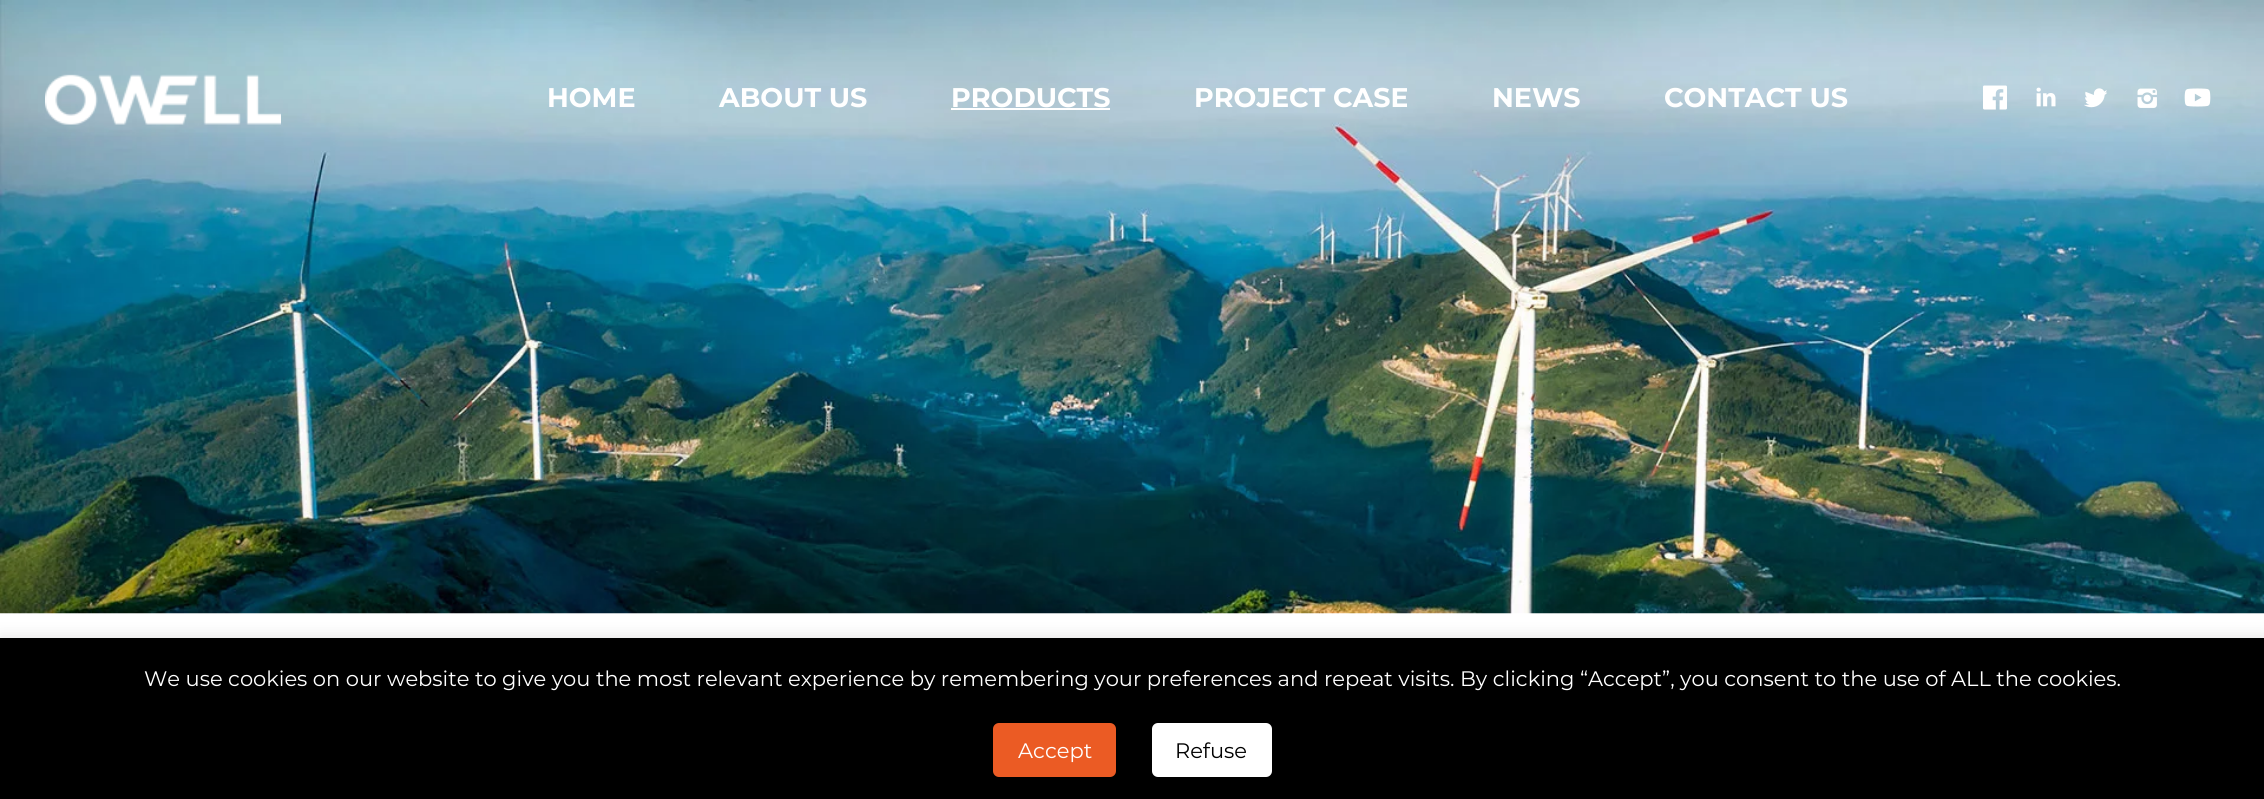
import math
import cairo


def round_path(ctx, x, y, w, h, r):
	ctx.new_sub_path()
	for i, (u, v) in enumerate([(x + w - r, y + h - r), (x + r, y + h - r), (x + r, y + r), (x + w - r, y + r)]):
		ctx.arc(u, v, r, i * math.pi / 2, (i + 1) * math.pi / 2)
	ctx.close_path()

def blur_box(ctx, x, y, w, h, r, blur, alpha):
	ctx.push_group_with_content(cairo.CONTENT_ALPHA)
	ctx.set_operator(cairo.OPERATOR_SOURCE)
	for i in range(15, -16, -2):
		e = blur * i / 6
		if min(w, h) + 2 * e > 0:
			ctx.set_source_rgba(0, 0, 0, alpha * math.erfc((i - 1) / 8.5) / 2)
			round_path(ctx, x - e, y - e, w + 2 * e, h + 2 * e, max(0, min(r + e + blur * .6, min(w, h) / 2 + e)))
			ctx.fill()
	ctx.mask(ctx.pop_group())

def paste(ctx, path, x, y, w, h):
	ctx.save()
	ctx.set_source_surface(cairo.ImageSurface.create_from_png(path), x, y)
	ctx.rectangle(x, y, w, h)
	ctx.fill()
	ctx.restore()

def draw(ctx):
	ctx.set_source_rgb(1, 1, 1)
	ctx.paint()
	paste(ctx, 'media/1.png', 0, 0, 2264, 614)
	paste(ctx, 'media/2.png', 45, 74, 236, 51)
	ctx.select_font_face('Montserrat', cairo.FONT_SLANT_NORMAL, cairo.FONT_WEIGHT_BOLD)
	ctx.set_font_size(27)
	ctx.set_source_rgb(1, 1, 1)
	for x, y, s in [
		(547, 107, 'HOME'),
		(719, 107, 'ABOUT US'),
		(951, 107, 'PRODUCTS'),
	]:
		ctx.move_to(x, y)
		ctx.show_text(s)
	ctx.rectangle(951, 108, 159, 2)
	ctx.fill()
	for x, y, s in [
		(1194, 107, 'PROJECT CASE'),
		(1492, 107, 'NEWS'),
		(1664, 107, 'CONTACT US'),
	]:
		ctx.move_to(x, y)
		ctx.show_text(s)
	paste(ctx, 'media/3.png', 1983, 85, 24, 25)
	paste(ctx, 'media/4.png', 2036, 87, 20, 20)
	paste(ctx, 'media/5.png', 2084, 88, 23, 20)
	paste(ctx, 'media/6.png', 2137, 88, 20, 20)
	paste(ctx, 'media/7.png', 2184, 88, 27, 19)
	ctx.set_source_rgb(0.675, 0.671, 0.671)
	blur_box(ctx, 0, 636, 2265, 162, 0, 7.5, 0.3)
	ctx.set_source_rgb(0, 0, 0)
	ctx.rectangle(0, 638, 2264, 161)
	ctx.fill()
	ctx.select_font_face('Montserrat')
	ctx.set_font_size(21)
	ctx.set_source_rgb(1, 1, 1)
	ctx.move_to(144, 686)
	ctx.show_text('We use cookies on our website to give you the most relevant experience by remembering your preferences and repeat visits. By clicking “Accept”, you consent to the use of ALL the cookies.')
	ctx.set_source_rgb(0.918, 0.357, 0.141)
	round_path(ctx, 993, 723, 123, 54, 6)
	ctx.fill()
	ctx.set_source_rgb(1, 1, 1)
	ctx.move_to(1018, 758)
	ctx.show_text('Accept')
	round_path(ctx, 1152, 723, 120, 54, 6)
	ctx.fill()
	ctx.set_source_rgb(0, 0, 0)
	ctx.move_to(1175, 758)
	ctx.show_text('Refuse')


surface = cairo.ImageSurface(cairo.FORMAT_RGB24, 2264, 799)
ctx = cairo.Context(surface)
options = cairo.FontOptions()
options.set_hint_metrics(cairo.HINT_METRICS_OFF)
options.set_hint_style(cairo.HINT_STYLE_NONE)
ctx.set_font_options(options)
ctx.set_miter_limit(4)
draw(ctx)
surface.write_to_png('image.png')
